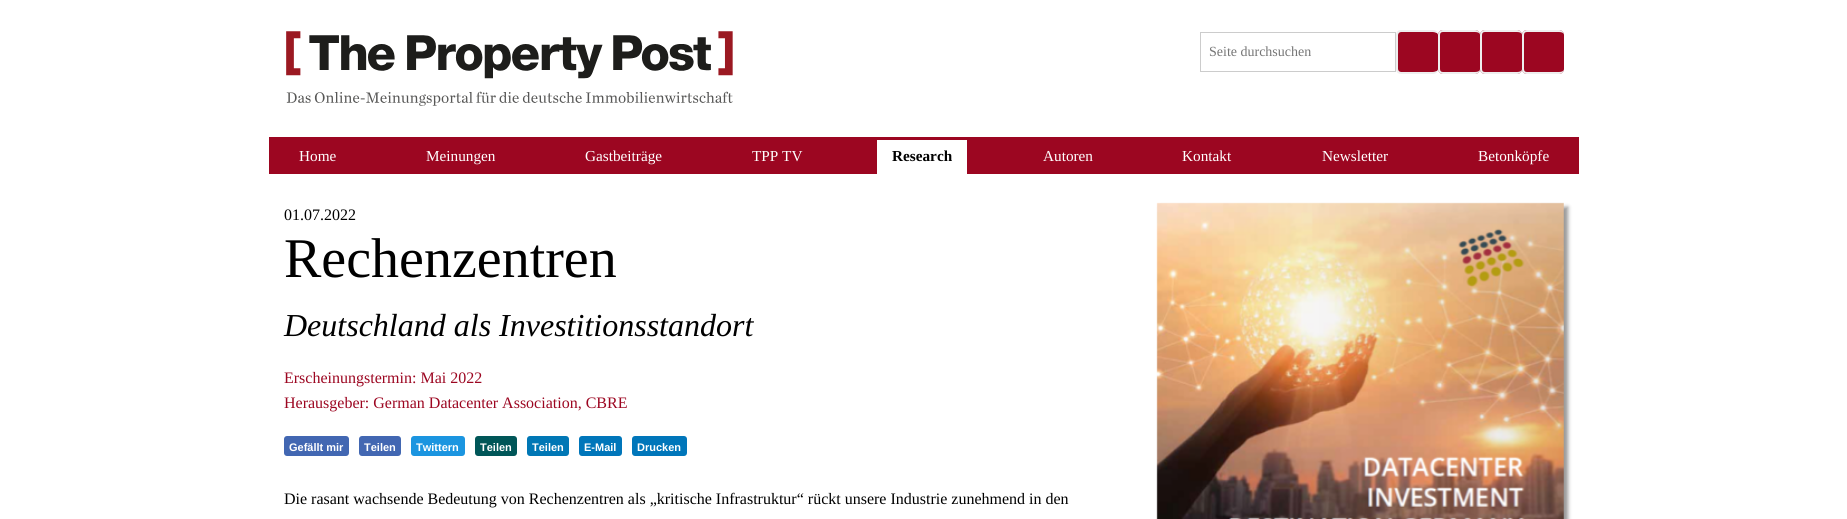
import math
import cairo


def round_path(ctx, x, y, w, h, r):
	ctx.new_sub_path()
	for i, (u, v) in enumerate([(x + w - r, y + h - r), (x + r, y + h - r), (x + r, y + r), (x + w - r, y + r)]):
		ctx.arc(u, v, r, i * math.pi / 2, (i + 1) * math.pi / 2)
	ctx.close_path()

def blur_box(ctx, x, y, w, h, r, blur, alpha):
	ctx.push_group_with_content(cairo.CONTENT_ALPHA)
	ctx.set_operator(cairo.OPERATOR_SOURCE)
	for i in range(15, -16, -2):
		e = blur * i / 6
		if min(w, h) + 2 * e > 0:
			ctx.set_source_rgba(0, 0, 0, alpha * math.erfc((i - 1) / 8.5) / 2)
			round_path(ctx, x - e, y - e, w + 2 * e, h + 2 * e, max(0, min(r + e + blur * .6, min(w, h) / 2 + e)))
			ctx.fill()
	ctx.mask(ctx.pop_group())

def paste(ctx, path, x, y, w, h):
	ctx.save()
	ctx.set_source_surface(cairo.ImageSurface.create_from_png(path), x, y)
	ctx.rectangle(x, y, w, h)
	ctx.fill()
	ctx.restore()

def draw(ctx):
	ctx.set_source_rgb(1, 1, 1)
	ctx.paint()
	paste(ctx, 'media/1.png', 286, 31, 447, 75)
	ctx.rectangle(1200.5, 32.5, 195, 39)
	ctx.set_source_rgb(0.8, 0.8, 0.8)
	ctx.set_line_width(1)
	ctx.stroke()
	ctx.select_font_face('Liberation Serif')
	ctx.set_font_size(14)
	ctx.set_source_rgb(0.459, 0.459, 0.459)
	ctx.move_to(1209, 56)
	ctx.show_text('Seite durchsuchen')
	ctx.set_source_rgb(0.612, 0.027, 0.129)
	ctx.new_path()
	ctx.move_to(1401, 32)
	ctx.line_to(1433, 32)
	ctx.curve_to(1436, 32, 1438, 33, 1438, 35)
	ctx.line_to(1438, 69)
	ctx.curve_to(1438, 71, 1436, 72, 1433, 72)
	ctx.line_to(1401, 72)
	ctx.curve_to(1399, 72, 1398, 71, 1398, 69)
	ctx.line_to(1398, 35)
	ctx.curve_to(1398, 33, 1399, 32, 1401, 32)
	ctx.close_path()
	ctx.fill()
	ctx.set_source_rgb(0.933, 0.933, 0.933)
	ctx.set_fill_rule(cairo.FILL_RULE_EVEN_ODD)
	ctx.new_path()
	ctx.move_to(1401, 30)
	ctx.line_to(1433, 30)
	ctx.curve_to(1436, 30, 1438, 32, 1438, 35)
	ctx.line_to(1438, 69)
	ctx.curve_to(1438, 72, 1436, 74, 1433, 74)
	ctx.line_to(1401, 74)
	ctx.curve_to(1398, 74, 1396, 72, 1396, 69)
	ctx.line_to(1396, 35)
	ctx.curve_to(1396, 32, 1398, 30, 1401, 30)
	ctx.close_path()
	ctx.move_to(1401, 32)
	ctx.line_to(1433, 32)
	ctx.curve_to(1436, 32, 1438, 33, 1438, 35)
	ctx.line_to(1438, 69)
	ctx.curve_to(1438, 71, 1436, 72, 1433, 72)
	ctx.line_to(1401, 72)
	ctx.curve_to(1399, 72, 1398, 71, 1398, 69)
	ctx.line_to(1398, 35)
	ctx.curve_to(1398, 33, 1399, 32, 1401, 32)
	ctx.close_path()
	ctx.fill()
	ctx.set_source_rgb(0.612, 0.027, 0.129)
	round_path(ctx, 1438, 30, 42, 44, 5)
	ctx.fill()
	ctx.set_source_rgb(0.933, 0.933, 0.933)
	ctx.new_path()
	ctx.move_to(1443, 30)
	ctx.line_to(1475, 30)
	ctx.curve_to(1478, 30, 1480, 32, 1480, 35)
	ctx.line_to(1480, 69)
	ctx.curve_to(1480, 72, 1478, 74, 1475, 74)
	ctx.line_to(1443, 74)
	ctx.curve_to(1440, 74, 1438, 72, 1438, 69)
	ctx.line_to(1438, 35)
	ctx.curve_to(1438, 32, 1440, 30, 1443, 30)
	ctx.close_path()
	ctx.move_to(1443, 32)
	ctx.line_to(1475, 32)
	ctx.curve_to(1478, 32, 1480, 33, 1480, 35)
	ctx.line_to(1480, 69)
	ctx.curve_to(1480, 71, 1478, 72, 1475, 72)
	ctx.line_to(1443, 72)
	ctx.curve_to(1441, 72, 1440, 71, 1440, 69)
	ctx.line_to(1440, 35)
	ctx.curve_to(1440, 33, 1441, 32, 1443, 32)
	ctx.close_path()
	ctx.fill()
	ctx.set_source_rgb(0.612, 0.027, 0.129)
	round_path(ctx, 1480, 30, 42, 44, 5)
	ctx.fill()
	ctx.set_source_rgb(0.933, 0.933, 0.933)
	ctx.new_path()
	ctx.move_to(1485, 30)
	ctx.line_to(1517, 30)
	ctx.curve_to(1520, 30, 1522, 32, 1522, 35)
	ctx.line_to(1522, 69)
	ctx.curve_to(1522, 72, 1520, 74, 1517, 74)
	ctx.line_to(1485, 74)
	ctx.curve_to(1482, 74, 1480, 72, 1480, 69)
	ctx.line_to(1480, 35)
	ctx.curve_to(1480, 32, 1482, 30, 1485, 30)
	ctx.close_path()
	ctx.move_to(1485, 32)
	ctx.line_to(1517, 32)
	ctx.curve_to(1520, 32, 1522, 33, 1522, 35)
	ctx.line_to(1522, 69)
	ctx.curve_to(1522, 71, 1520, 72, 1517, 72)
	ctx.line_to(1485, 72)
	ctx.curve_to(1483, 72, 1482, 71, 1482, 69)
	ctx.line_to(1482, 35)
	ctx.curve_to(1482, 33, 1483, 32, 1485, 32)
	ctx.close_path()
	ctx.fill()
	ctx.set_source_rgb(0.612, 0.027, 0.129)
	round_path(ctx, 1522, 30, 42, 44, 5)
	ctx.fill()
	ctx.set_source_rgb(0.933, 0.933, 0.933)
	ctx.new_path()
	ctx.move_to(1527, 30)
	ctx.line_to(1559, 30)
	ctx.curve_to(1562, 30, 1564, 32, 1564, 35)
	ctx.line_to(1564, 69)
	ctx.curve_to(1564, 72, 1562, 74, 1559, 74)
	ctx.line_to(1527, 74)
	ctx.curve_to(1524, 74, 1522, 72, 1522, 69)
	ctx.line_to(1522, 35)
	ctx.curve_to(1522, 32, 1524, 30, 1527, 30)
	ctx.close_path()
	ctx.move_to(1527, 32)
	ctx.line_to(1559, 32)
	ctx.curve_to(1562, 32, 1564, 33, 1564, 35)
	ctx.line_to(1564, 69)
	ctx.curve_to(1564, 71, 1562, 72, 1559, 72)
	ctx.line_to(1527, 72)
	ctx.curve_to(1525, 72, 1524, 71, 1524, 69)
	ctx.line_to(1524, 35)
	ctx.curve_to(1524, 33, 1525, 32, 1527, 32)
	ctx.close_path()
	ctx.fill()
	ctx.set_source_rgb(0.612, 0.027, 0.129)
	ctx.rectangle(269, 137, 1310, 37)
	ctx.fill()
	ctx.set_font_size(15.25)
	ctx.set_source_rgb(1, 1, 1)
	for x, y, s in [
		(299, 161, 'Home'),
		(426, 161, 'Meinungen'),
		(585, 161, 'Gastbeiträge'),
		(752, 161, 'TPP TV'),
	]:
		ctx.move_to(x, y)
		ctx.show_text(s)
	ctx.rectangle(877, 140, 90, 34)
	ctx.fill()
	ctx.select_font_face('Liberation Serif', cairo.FONT_SLANT_NORMAL, cairo.FONT_WEIGHT_BOLD)
	ctx.set_source_rgb(0, 0, 0)
	ctx.move_to(892, 161)
	ctx.show_text('Research')
	ctx.select_font_face('Liberation Serif')
	ctx.set_source_rgb(1, 1, 1)
	for x, y, s in [
		(1043, 161, 'Autoren'),
		(1182, 161, 'Kontakt'),
		(1322, 161, 'Newsletter'),
		(1478, 161, 'Betonköpfe'),
	]:
		ctx.move_to(x, y)
		ctx.show_text(s)
	ctx.set_font_size(16)
	ctx.set_source_rgb(0, 0, 0)
	ctx.move_to(284, 220)
	ctx.show_text('01.07.2022')
	ctx.set_font_size(56)
	ctx.move_to(284, 277)
	ctx.show_text('Rechenzentren')
	ctx.select_font_face('Liberation Serif', cairo.FONT_SLANT_ITALIC)
	ctx.set_font_size(32)
	ctx.move_to(284, 336)
	ctx.show_text('Deutschland als Investitionsstandort')
	ctx.select_font_face('Liberation Serif')
	ctx.set_font_size(16)
	ctx.set_source_rgb(0.612, 0.027, 0.129)
	ctx.move_to(284, 383)
	ctx.show_text('Erscheinungstermin: Mai 2022')
	ctx.move_to(284, 408)
	ctx.show_text('Herausgeber: German Datacenter Association, CBRE')
	ctx.set_source_rgb(0.259, 0.404, 0.698)
	round_path(ctx, 284, 436, 65, 20, 3)
	ctx.fill()
	ctx.select_font_face('Liberation Sans', cairo.FONT_SLANT_NORMAL, cairo.FONT_WEIGHT_BOLD)
	ctx.set_font_size(11)
	ctx.set_source_rgb(1, 1, 1)
	ctx.move_to(289, 451)
	ctx.show_text('Gefällt mir')
	ctx.set_source_rgb(0.259, 0.404, 0.698)
	round_path(ctx, 359, 436, 42, 20, 3)
	ctx.fill()
	ctx.set_source_rgb(1, 1, 1)
	ctx.move_to(364, 451)
	ctx.show_text('Teilen')
	ctx.set_source_rgb(0.106, 0.584, 0.878)
	round_path(ctx, 411, 436, 54, 20, 3)
	ctx.fill()
	ctx.set_source_rgb(1, 1, 1)
	ctx.move_to(416, 451)
	ctx.show_text('Twittern')
	ctx.set_source_rgb(0, 0.337, 0.345)
	round_path(ctx, 475, 436, 42, 20, 3)
	ctx.fill()
	ctx.set_source_rgb(1, 1, 1)
	ctx.move_to(480, 451)
	ctx.show_text('Teilen')
	ctx.set_source_rgb(0, 0.467, 0.71)
	round_path(ctx, 527, 436, 42, 20, 3)
	ctx.fill()
	ctx.set_source_rgb(1, 1, 1)
	ctx.move_to(532, 451)
	ctx.show_text('Teilen')
	ctx.set_source_rgb(0, 0.463, 0.729)
	round_path(ctx, 579, 436, 43, 20, 3)
	ctx.fill()
	ctx.set_source_rgb(1, 1, 1)
	ctx.move_to(584, 451)
	ctx.show_text('E-Mail')
	ctx.set_source_rgb(0, 0.463, 0.729)
	round_path(ctx, 632, 436, 55, 20, 3)
	ctx.fill()
	ctx.set_source_rgb(1, 1, 1)
	ctx.move_to(637, 451)
	ctx.show_text('Drucken')
	ctx.select_font_face('Liberation Serif')
	ctx.set_font_size(16)
	ctx.set_source_rgb(0, 0, 0)
	ctx.move_to(284, 504)
	ctx.show_text('Die rasant wachsende Bedeutung von Rechenzentren als „kritische Infrastruktur“ rückt unsere Industrie zunehmend in den')
	ctx.set_source_rgb(0.6, 0.6, 0.6)
	blur_box(ctx, 1161, 207, 407, 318, 0, 2, 1)
	paste(ctx, 'media/2.png', 1156, 202, 408, 317)


surface = cairo.ImageSurface(cairo.FORMAT_RGB24, 1847, 519)
ctx = cairo.Context(surface)
options = cairo.FontOptions()
options.set_hint_metrics(cairo.HINT_METRICS_OFF)
options.set_hint_style(cairo.HINT_STYLE_NONE)
ctx.set_font_options(options)
ctx.set_miter_limit(4)
draw(ctx)
surface.write_to_png('image.png')
